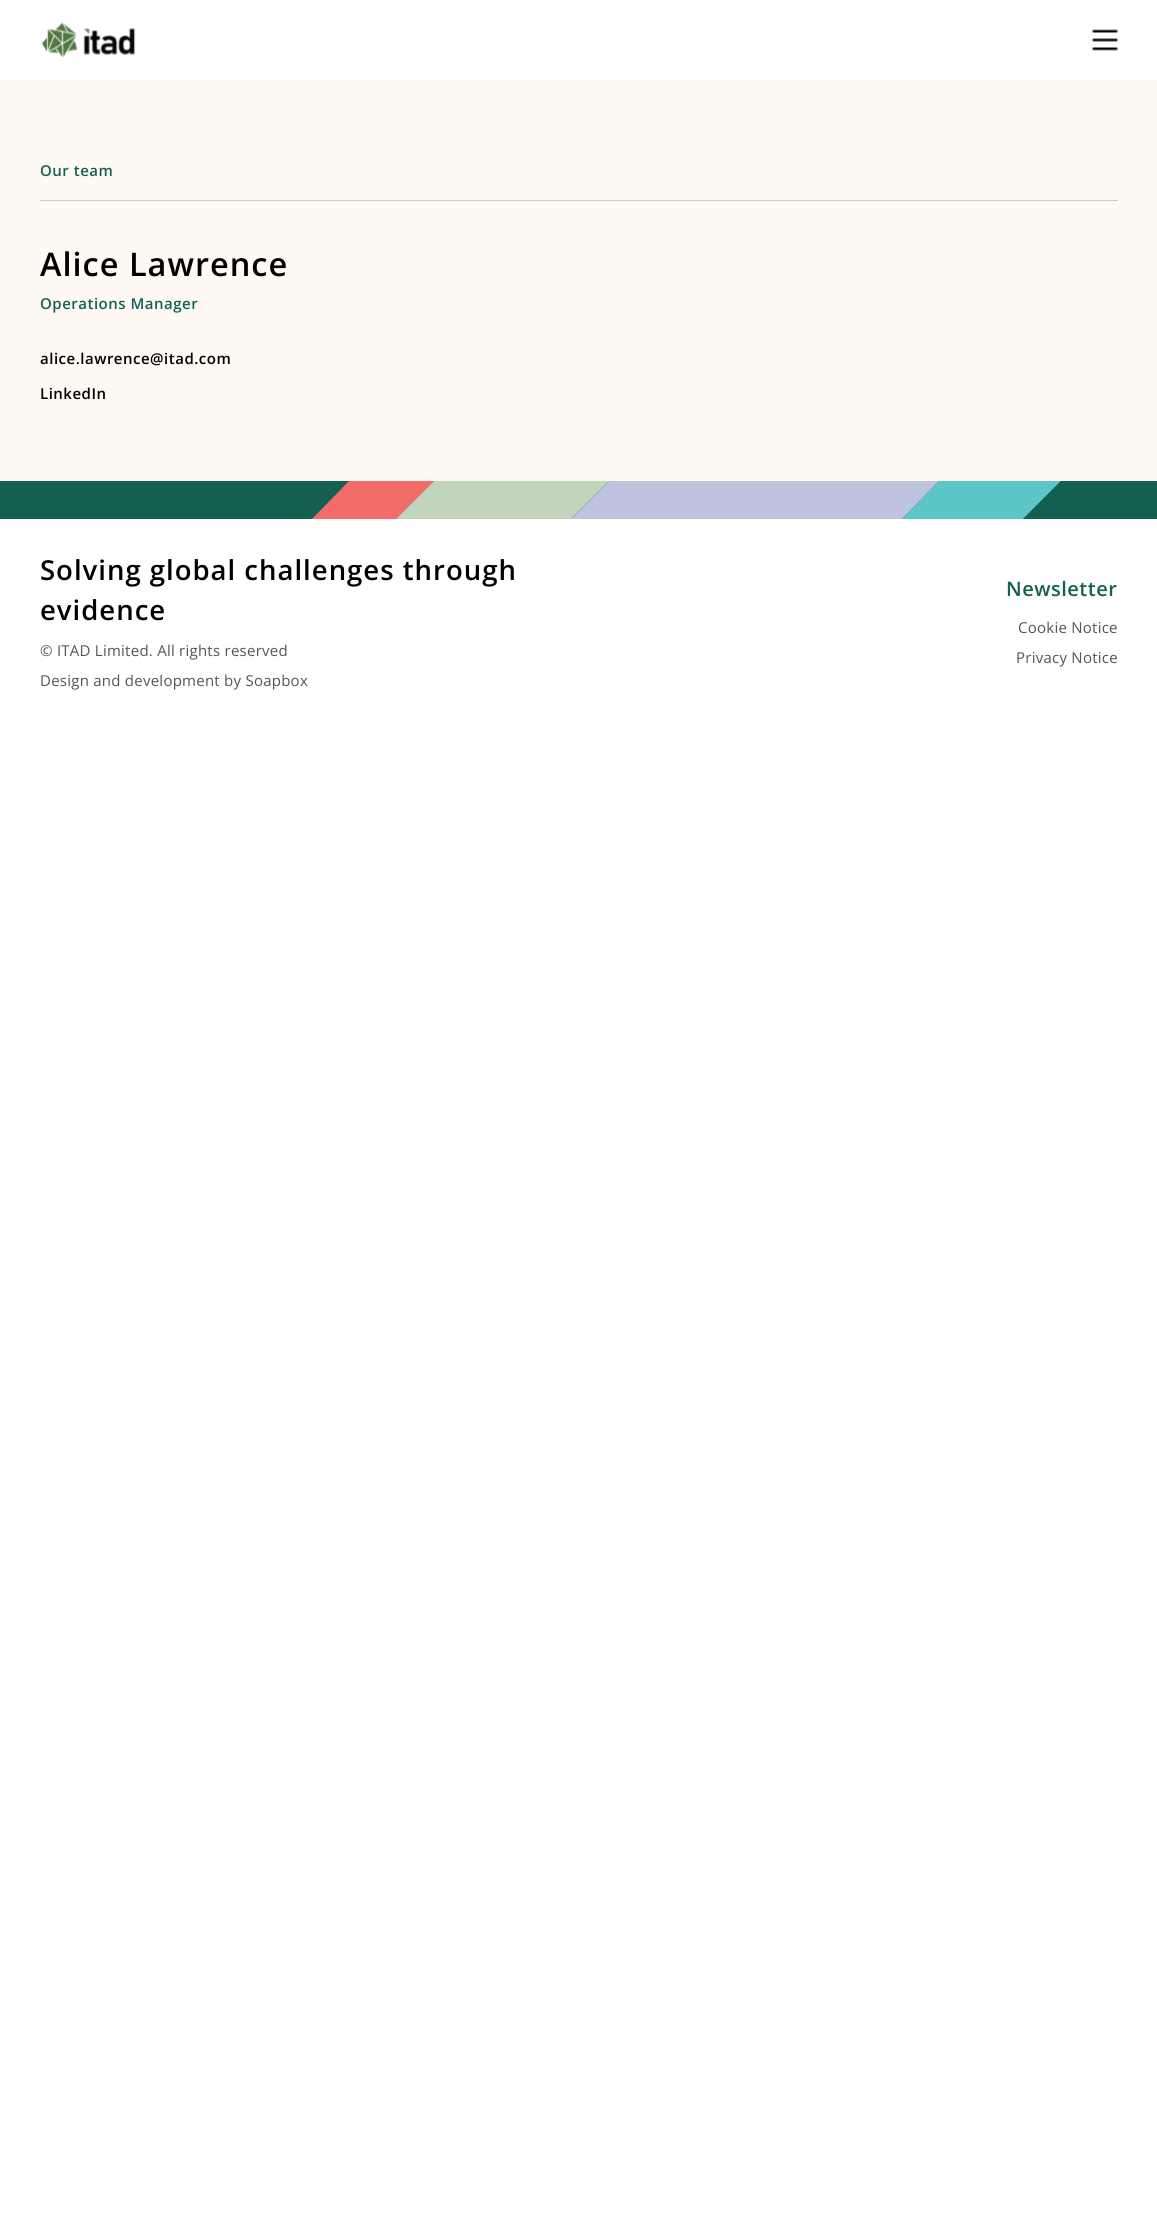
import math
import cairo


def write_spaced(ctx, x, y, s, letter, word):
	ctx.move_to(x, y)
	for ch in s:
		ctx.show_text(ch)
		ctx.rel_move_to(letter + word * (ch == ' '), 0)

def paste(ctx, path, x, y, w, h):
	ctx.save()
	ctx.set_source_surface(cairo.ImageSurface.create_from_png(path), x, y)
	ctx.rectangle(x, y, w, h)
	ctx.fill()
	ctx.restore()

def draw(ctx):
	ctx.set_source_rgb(1, 1, 1)
	ctx.paint()
	paste(ctx, 'media/1.png', 41, 22, 95, 36)
	paste(ctx, 'media/2.png', 1092, 29, 26, 22)
	ctx.set_source_rgb(0.996, 0.973, 0.949)
	ctx.rectangle(0, 80, 1157, 401)
	ctx.fill()
	ctx.set_source_rgb(0.761, 0.831, 0.733)
	ctx.rectangle(40, 200, 1078, 1)
	ctx.fill()
	ctx.select_font_face('Open Sans SemiBold')
	ctx.set_font_size(15)
	ctx.set_source_rgb(0.075, 0.376, 0.318)
	write_spaced(ctx, 40, 176, 'Our team', 0.5, 0)
	ctx.set_font_size(32.5)
	ctx.set_source_rgb(0, 0, 0)
	write_spaced(ctx, 40, 276, 'Alice Lawrence', 1, 0)
	ctx.set_font_size(15)
	ctx.set_source_rgb(0.075, 0.376, 0.318)
	write_spaced(ctx, 40, 309, 'Operations Manager', 0.5, 0)
	ctx.set_source_rgb(0, 0, 0)
	write_spaced(ctx, 40, 364, 'alice.lawrence@itad.com', 0.5, 0)
	write_spaced(ctx, 40, 399, 'LinkedIn', 0.5, 0)
	ctx.set_source_rgb(0.075, 0.376, 0.318)
	ctx.rectangle(0, 481, 1061, 38)
	ctx.fill()
	ctx.save()
	ctx.rectangle(0, 481, 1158, 38)
	ctx.clip()
	ctx.set_source_rgb(0.949, 0.427, 0.412)
	ctx.new_path()
	ctx.move_to(434, 481)
	ctx.line_to(349, 481)
	ctx.line_to(311, 520)
	ctx.line_to(395, 520)
	ctx.close_path()
	ctx.fill()
	ctx.set_source_rgb(0.761, 0.831, 0.733)
	ctx.new_path()
	ctx.move_to(609, 481)
	ctx.line_to(434, 481)
	ctx.line_to(395, 520)
	ctx.line_to(570, 520)
	ctx.close_path()
	ctx.fill()
	ctx.set_source_rgb(0.745, 0.765, 0.875)
	ctx.new_path()
	ctx.move_to(939, 481)
	ctx.line_to(609, 481)
	ctx.line_to(570, 520)
	ctx.line_to(901, 520)
	ctx.close_path()
	ctx.fill()
	ctx.set_source_rgb(0.365, 0.776, 0.788)
	ctx.new_path()
	ctx.move_to(1061, 481)
	ctx.line_to(939, 481)
	ctx.line_to(901, 520)
	ctx.line_to(1022, 520)
	ctx.close_path()
	ctx.fill()
	ctx.set_source_rgb(0.075, 0.376, 0.318)
	ctx.new_path()
	ctx.move_to(1157, 481)
	ctx.line_to(1061, 481)
	ctx.line_to(1022, 520)
	ctx.line_to(1157, 520)
	ctx.close_path()
	ctx.fill()
	ctx.restore()
	ctx.set_font_size(27.5)
	ctx.set_source_rgb(0, 0, 0)
	write_spaced(ctx, 40, 580, 'Solving global challenges through', 1, 0)
	write_spaced(ctx, 40, 620, 'evidence', 1, 0)
	ctx.select_font_face('Open Sans')
	ctx.set_font_size(15)
	ctx.set_source_rgb(0.333, 0.333, 0.333)
	write_spaced(ctx, 40, 656, '© ITAD Limited. All rights reserved', 0.25, 0)
	write_spaced(ctx, 40, 686, 'Design and development by Soapbox', 0.25, 0)
	ctx.select_font_face('Open Sans SemiBold')
	ctx.set_font_size(20)
	ctx.set_source_rgb(0.075, 0.376, 0.318)
	write_spaced(ctx, 1006, 596, 'Newsletter', 0.5, 0)
	ctx.select_font_face('Open Sans')
	ctx.set_font_size(15)
	ctx.set_source_rgb(0.333, 0.333, 0.333)
	write_spaced(ctx, 1018, 633, 'Cookie Notice', 0.25, 0)
	write_spaced(ctx, 1016, 663, 'Privacy Notice', 0.25, 0)


surface = cairo.ImageSurface(cairo.FORMAT_RGB24, 1157, 2218)
ctx = cairo.Context(surface)
options = cairo.FontOptions()
options.set_hint_metrics(cairo.HINT_METRICS_OFF)
options.set_hint_style(cairo.HINT_STYLE_NONE)
ctx.set_font_options(options)
ctx.set_miter_limit(4)
draw(ctx)
surface.write_to_png('image.png')
